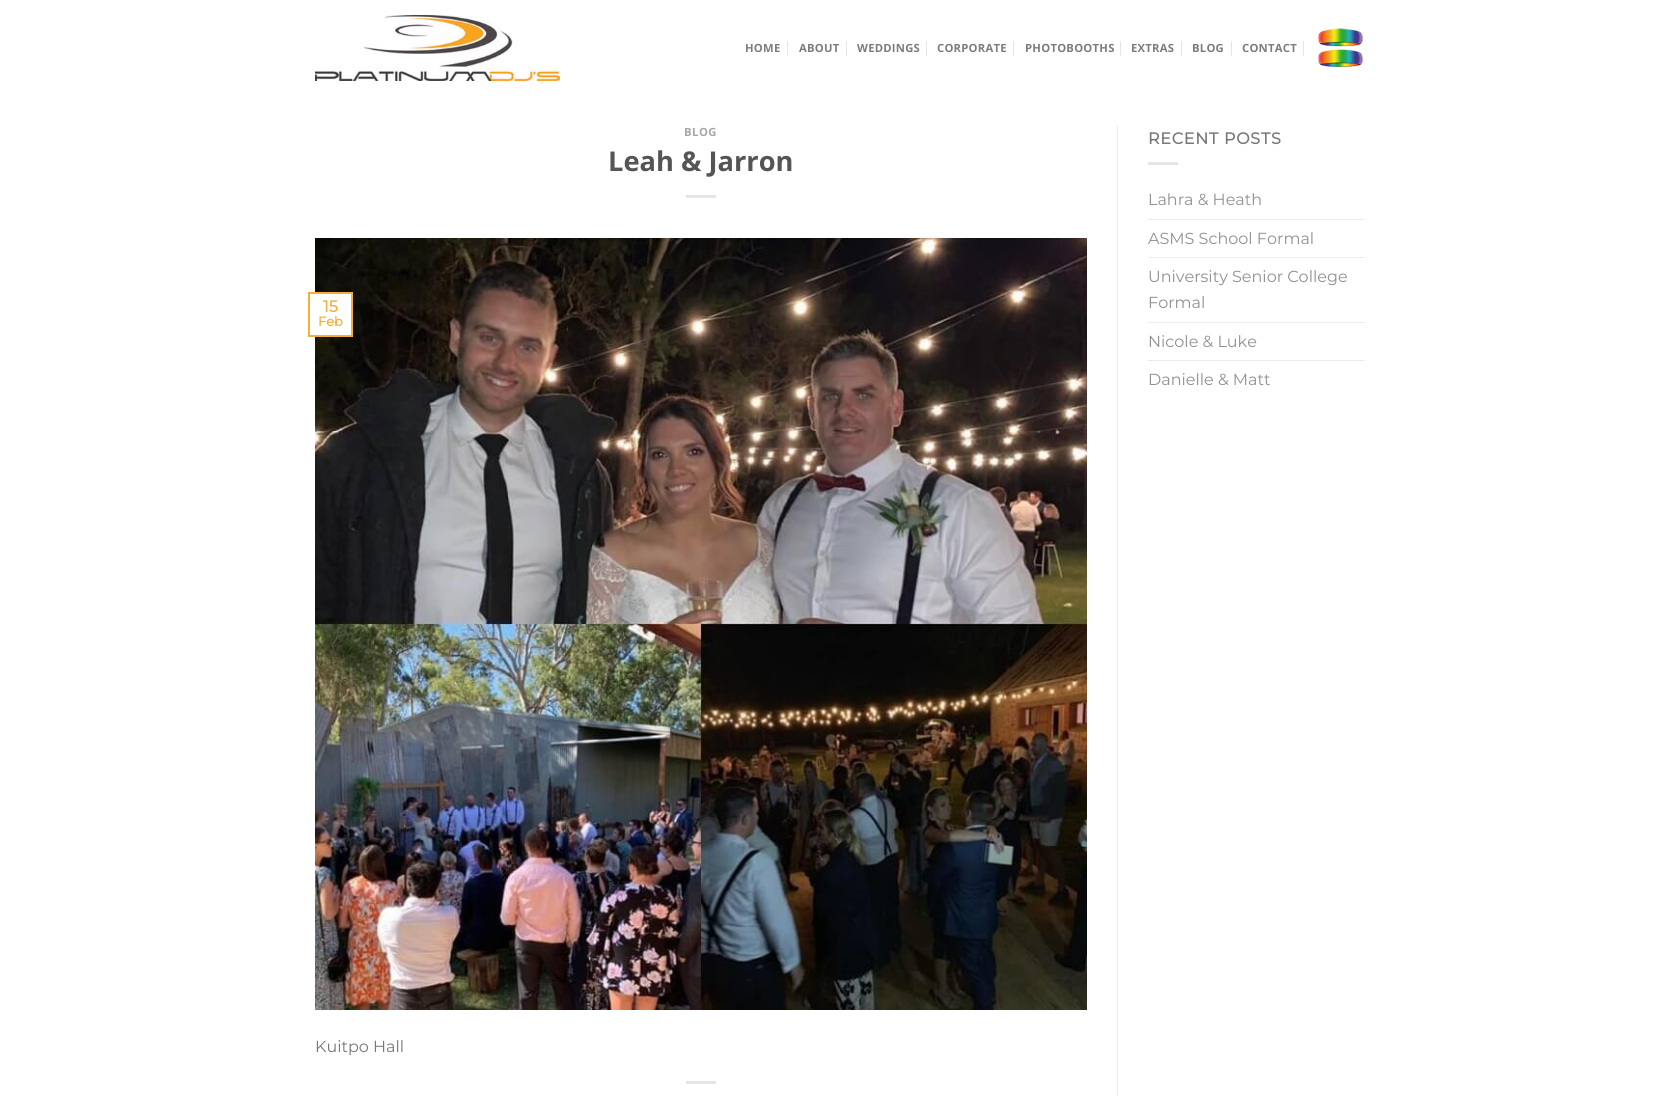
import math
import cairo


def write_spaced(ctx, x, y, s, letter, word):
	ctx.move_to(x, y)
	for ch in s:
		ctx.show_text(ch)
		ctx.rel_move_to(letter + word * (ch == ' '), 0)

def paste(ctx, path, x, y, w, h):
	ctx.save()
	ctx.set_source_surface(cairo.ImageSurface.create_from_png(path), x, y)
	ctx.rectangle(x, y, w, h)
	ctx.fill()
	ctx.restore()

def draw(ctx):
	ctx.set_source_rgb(1, 1, 1)
	ctx.paint()
	paste(ctx, 'media/1.png', 315, 15, 245, 66)
	ctx.select_font_face('Open Sans', cairo.FONT_SLANT_NORMAL, cairo.FONT_WEIGHT_BOLD)
	ctx.set_font_size(11.25)
	ctx.set_source_rgb(0.49, 0.49, 0.49)
	write_spaced(ctx, 745, 52, 'HOME', 0.25, 0)
	ctx.set_source_rgb(0.902, 0.902, 0.902)
	ctx.rectangle(787, 41, 1, 15)
	ctx.fill()
	ctx.set_source_rgb(0.49, 0.49, 0.49)
	write_spaced(ctx, 799, 52, 'ABOUT', 0.25, 0)
	ctx.set_source_rgb(0.902, 0.902, 0.902)
	ctx.rectangle(846, 41, 1, 15)
	ctx.fill()
	ctx.set_source_rgb(0.49, 0.49, 0.49)
	write_spaced(ctx, 857, 52, 'WEDDINGS', 0.25, 0)
	ctx.set_source_rgb(0.902, 0.902, 0.902)
	ctx.rectangle(926, 41, 1, 15)
	ctx.fill()
	ctx.set_source_rgb(0.49, 0.49, 0.49)
	write_spaced(ctx, 937, 52, 'CORPORATE', 0.25, 0)
	ctx.set_source_rgb(0.902, 0.902, 0.902)
	ctx.rectangle(1013, 41, 1, 15)
	ctx.fill()
	ctx.set_source_rgb(0.49, 0.49, 0.49)
	write_spaced(ctx, 1025, 52, 'PHOTOBOOTHS', 0.25, 0)
	ctx.set_source_rgb(0.902, 0.902, 0.902)
	ctx.rectangle(1120, 41, 1, 15)
	ctx.fill()
	ctx.set_source_rgb(0.49, 0.49, 0.49)
	write_spaced(ctx, 1131, 52, 'EXTRAS', 0.25, 0)
	ctx.set_source_rgb(0.902, 0.902, 0.902)
	ctx.rectangle(1181, 41, 1, 15)
	ctx.fill()
	ctx.set_source_rgb(0.49, 0.49, 0.49)
	write_spaced(ctx, 1192, 52, 'BLOG', 0.25, 0)
	ctx.set_source_rgb(0.902, 0.902, 0.902)
	ctx.rectangle(1231, 41, 1, 15)
	ctx.fill()
	ctx.set_source_rgb(0.49, 0.49, 0.49)
	write_spaced(ctx, 1242, 52, 'CONTACT', 0.25, 0)
	ctx.set_source_rgb(0.902, 0.902, 0.902)
	ctx.rectangle(1303, 41, 1, 15)
	ctx.fill()
	paste(ctx, 'media/2.png', 1318, 28, 45, 39)
	ctx.set_source_rgb(0.655, 0.655, 0.655)
	write_spaced(ctx, 684, 136, 'BLOG', 0.5, 0)
	ctx.set_font_size(27.25)
	ctx.set_source_rgb(0.333, 0.333, 0.333)
	ctx.move_to(608, 171)
	ctx.show_text('Leah & Jarron')
	ctx.set_source_rgb(0.902, 0.902, 0.902)
	ctx.rectangle(686, 195, 30, 3)
	ctx.fill()
	paste(ctx, 'media/3.png', 315, 238, 772, 772)
	ctx.set_source_rgb(1, 1, 1)
	ctx.rectangle(315, 294, 36, 41)
	ctx.fill()
	ctx.rectangle(309, 293, 43, 43)
	ctx.set_source_rgb(0.957, 0.686, 0.22)
	ctx.stroke()
	ctx.select_font_face('Montserrat', cairo.FONT_SLANT_NORMAL, cairo.FONT_WEIGHT_BOLD)
	ctx.set_font_size(16)
	ctx.move_to(323, 312)
	ctx.show_text('15')
	ctx.set_font_size(13)
	ctx.move_to(318, 326)
	ctx.show_text('Feb')
	ctx.select_font_face('Montserrat Thin')
	ctx.set_font_size(16)
	ctx.set_source_rgb(0.467, 0.467, 0.467)
	ctx.move_to(315, 1052)
	ctx.show_text('Kuitpo Hall')
	ctx.set_source_rgb(0.902, 0.902, 0.902)
	ctx.rectangle(686, 1081, 30, 3)
	ctx.fill()
	ctx.set_source_rgb(0.925, 0.925, 0.925)
	ctx.rectangle(1117, 126, 1, 970)
	ctx.fill()
	ctx.select_font_face('Montserrat', cairo.FONT_SLANT_NORMAL, cairo.FONT_WEIGHT_BOLD)
	ctx.set_source_rgb(0.467, 0.467, 0.467)
	write_spaced(ctx, 1148, 144, 'RECENT POSTS', 0.75, 0)
	ctx.set_source_rgb(0.902, 0.902, 0.902)
	ctx.rectangle(1148, 162, 30, 3)
	ctx.fill()
	ctx.select_font_face('Montserrat Thin')
	ctx.set_source_rgb(0.569, 0.569, 0.569)
	ctx.move_to(1148, 205)
	ctx.show_text('Lahra & Heath')
	ctx.set_source_rgb(0.925, 0.925, 0.925)
	ctx.rectangle(1148, 219, 217, 1)
	ctx.fill()
	ctx.set_source_rgb(0.569, 0.569, 0.569)
	ctx.move_to(1148, 244)
	ctx.show_text('ASMS School Formal')
	ctx.set_source_rgb(0.925, 0.925, 0.925)
	ctx.rectangle(1148, 257, 217, 1)
	ctx.fill()
	ctx.set_source_rgb(0.569, 0.569, 0.569)
	ctx.move_to(1148, 282)
	ctx.show_text('University Senior College')
	ctx.move_to(1148, 308)
	ctx.show_text('Formal')
	ctx.set_source_rgb(0.925, 0.925, 0.925)
	ctx.rectangle(1148, 322, 217, 1)
	ctx.fill()
	ctx.set_source_rgb(0.569, 0.569, 0.569)
	ctx.move_to(1148, 347)
	ctx.show_text('Nicole & Luke')
	ctx.set_source_rgb(0.925, 0.925, 0.925)
	ctx.rectangle(1148, 360, 217, 1)
	ctx.fill()
	ctx.set_source_rgb(0.569, 0.569, 0.569)
	ctx.move_to(1148, 385)
	ctx.show_text('Danielle & Matt')


surface = cairo.ImageSurface(cairo.FORMAT_RGB24, 1679, 1096)
ctx = cairo.Context(surface)
options = cairo.FontOptions()
options.set_hint_metrics(cairo.HINT_METRICS_OFF)
options.set_hint_style(cairo.HINT_STYLE_NONE)
ctx.set_font_options(options)
ctx.set_miter_limit(4)
draw(ctx)
surface.write_to_png('image.png')
